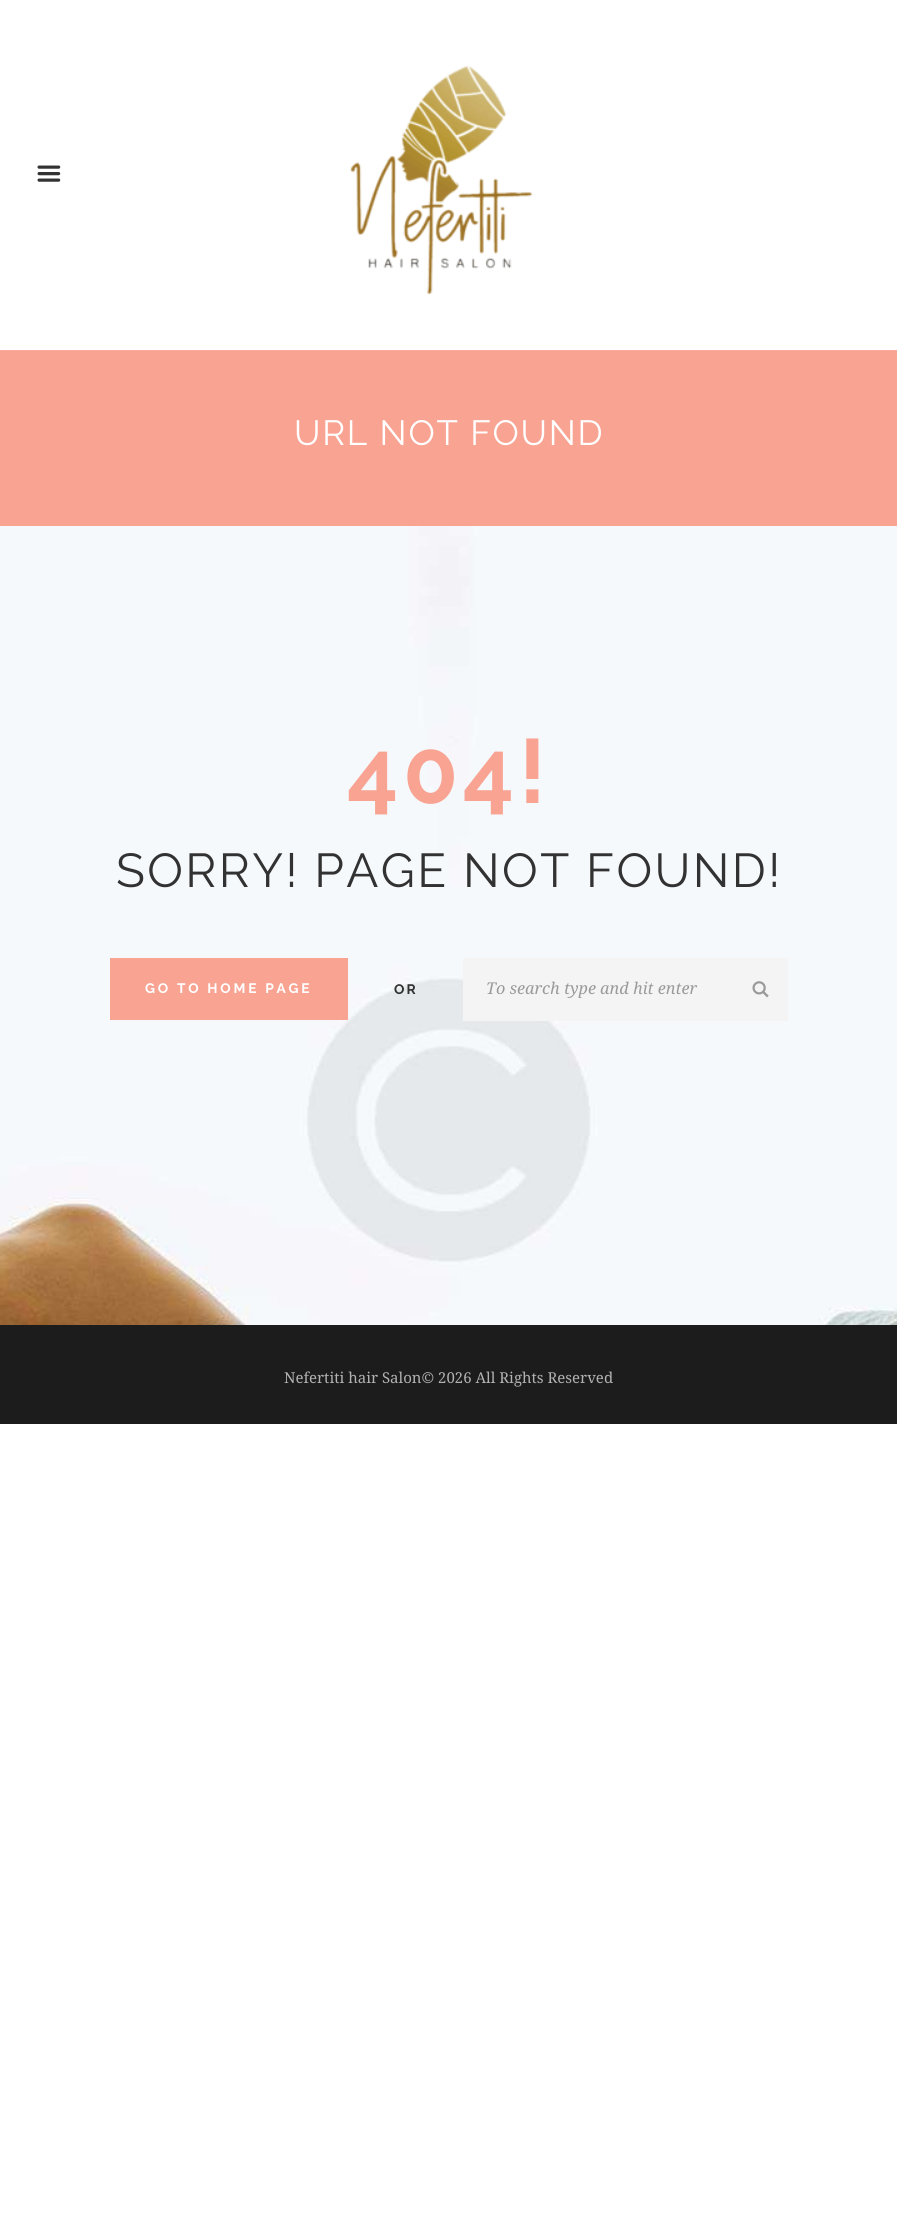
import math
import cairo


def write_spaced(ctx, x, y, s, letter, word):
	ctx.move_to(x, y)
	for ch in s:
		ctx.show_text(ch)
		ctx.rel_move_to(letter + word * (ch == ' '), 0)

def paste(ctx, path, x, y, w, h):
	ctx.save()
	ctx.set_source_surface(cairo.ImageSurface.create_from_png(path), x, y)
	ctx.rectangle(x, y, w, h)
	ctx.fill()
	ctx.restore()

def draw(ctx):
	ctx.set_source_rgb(1, 1, 1)
	ctx.paint()
	paste(ctx, 'media/1.png', 0, 526, 897, 799)
	paste(ctx, 'media/2.png', 37, 165, 24, 17)
	paste(ctx, 'media/3.png', 350, 65, 183, 230)
	ctx.set_source_rgb(0.976, 0.639, 0.573)
	ctx.rectangle(0, 351, 897, 175)
	ctx.fill()
	ctx.set_source_rgb(0.973, 0.671, 0.612)
	ctx.rectangle(0, 350, 897, 1)
	ctx.fill()
	ctx.select_font_face('Raleway')
	ctx.set_font_size(35)
	ctx.set_source_rgb(1, 1, 1)
	write_spaced(ctx, 294, 445, 'URL NOT FOUND', 1.75, 0)
	ctx.select_font_face('Raleway', cairo.FONT_SLANT_NORMAL, cairo.FONT_WEIGHT_BOLD)
	ctx.set_font_size(90)
	ctx.set_source_rgb(0.976, 0.639, 0.573)
	write_spaced(ctx, 347, 803, '404!', 4.5, 0)
	ctx.select_font_face('Raleway')
	ctx.set_font_size(47.5)
	ctx.set_source_rgb(0.196, 0.196, 0.196)
	write_spaced(ctx, 116, 887, 'SORRY! PAGE NOT FOUND!', 2.4, 0)
	ctx.set_source_rgb(0.976, 0.639, 0.573)
	ctx.rectangle(110, 958, 238, 62)
	ctx.fill()
	ctx.select_font_face('Raleway', cairo.FONT_SLANT_NORMAL, cairo.FONT_WEIGHT_BOLD)
	ctx.set_font_size(13.75)
	ctx.set_source_rgb(1, 1, 1)
	write_spaced(ctx, 145, 993, 'GO TO HOME PAGE', 2.75, 0)
	ctx.set_source_rgb(0.196, 0.196, 0.196)
	write_spaced(ctx, 394, 994, 'OR', 2, 0)
	ctx.set_source_rgb(0.957, 0.957, 0.957)
	ctx.rectangle(463, 958, 325, 63)
	ctx.fill()
	ctx.select_font_face('Droid Serif', cairo.FONT_SLANT_ITALIC)
	ctx.set_font_size(16.25)
	ctx.set_source_rgb(0.604, 0.604, 0.604)
	ctx.move_to(486, 994)
	ctx.show_text('To search type and hit enter')
	paste(ctx, 'media/4.png', 752, 981, 17, 17)
	ctx.set_source_rgb(0.11, 0.11, 0.11)
	ctx.rectangle(0, 1325, 897, 99)
	ctx.fill()
	ctx.select_font_face('Droid Serif')
	ctx.set_font_size(15)
	ctx.set_source_rgb(0.698, 0.698, 0.698)
	ctx.move_to(284, 1383)
	ctx.show_text('Nefertiti hair Salon© 2026 All Rights Reserved')


surface = cairo.ImageSurface(cairo.FORMAT_RGB24, 897, 2238)
ctx = cairo.Context(surface)
options = cairo.FontOptions()
options.set_hint_metrics(cairo.HINT_METRICS_OFF)
options.set_hint_style(cairo.HINT_STYLE_NONE)
ctx.set_font_options(options)
ctx.set_miter_limit(4)
draw(ctx)
surface.write_to_png('image.png')
